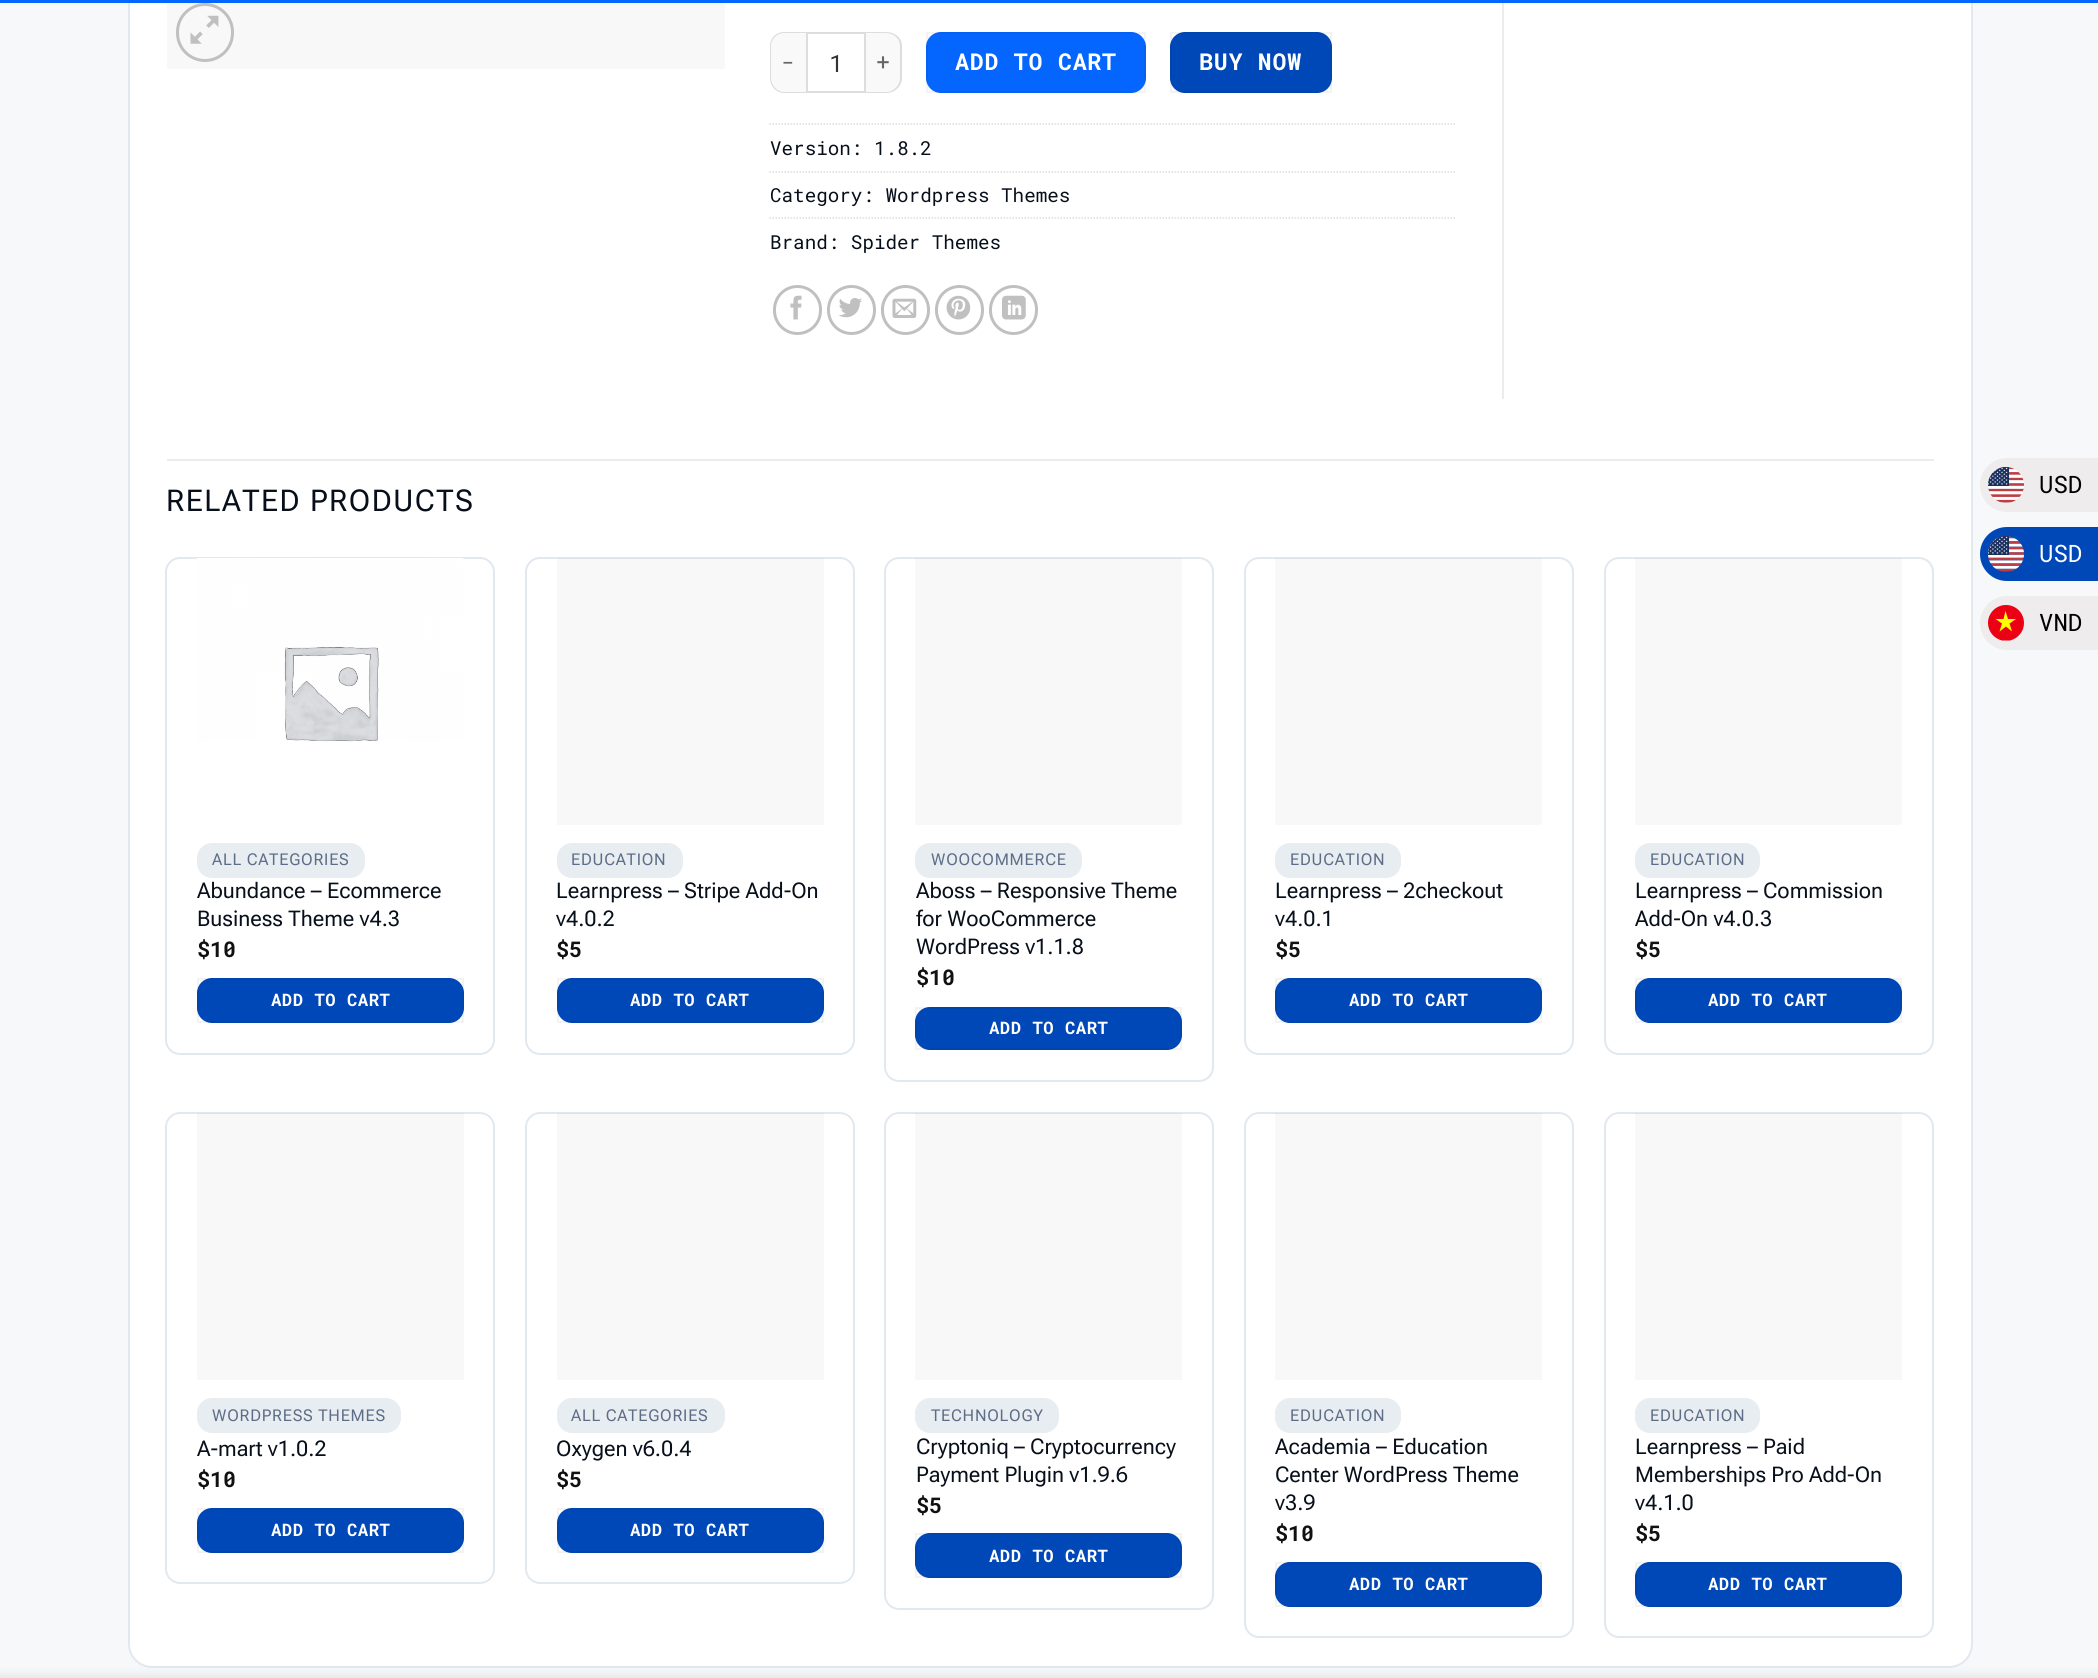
import math
import cairo


def write_spaced(ctx, x, y, s, letter, word):
	ctx.move_to(x, y)
	for ch in s:
		ctx.show_text(ch)
		ctx.rel_move_to(letter + word * (ch == ' '), 0)

def round_path(ctx, x, y, w, h, r):
	ctx.new_sub_path()
	for i, (u, v) in enumerate([(x + w - r, y + h - r), (x + r, y + h - r), (x + r, y + r), (x + w - r, y + r)]):
		ctx.arc(u, v, r, i * math.pi / 2, (i + 1) * math.pi / 2)
	ctx.close_path()

def blur_box(ctx, x, y, w, h, r, blur, alpha):
	ctx.push_group_with_content(cairo.CONTENT_ALPHA)
	ctx.set_operator(cairo.OPERATOR_SOURCE)
	for i in range(15, -16, -2):
		e = blur * i / 6
		if min(w, h) + 2 * e > 0:
			ctx.set_source_rgba(0, 0, 0, alpha * math.erfc((i - 1) / 8.5) / 2)
			round_path(ctx, x - e, y - e, w + 2 * e, h + 2 * e, max(0, min(r + e + blur * .6, min(w, h) / 2 + e)))
			ctx.fill()
	ctx.mask(ctx.pop_group())

def paste(ctx, path, x, y, w, h):
	ctx.save()
	ctx.set_source_surface(cairo.ImageSurface.create_from_png(path), x, y)
	ctx.rectangle(x, y, w, h)
	ctx.fill()
	ctx.restore()

def draw(ctx):
	ctx.set_source_rgb(0.961, 0.969, 0.976)
	ctx.paint()
	ctx.set_source_rgb(1, 1, 1)
	round_path(ctx, 129, -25, 1843, 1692, 23)
	ctx.fill_preserve()
	ctx.set_source_rgb(0.886, 0.91, 0.937)
	ctx.stroke()
	ctx.set_source_rgb(0.925, 0.925, 0.925)
	ctx.rectangle(1502, 0, 2, 399)
	ctx.fill()
	ctx.set_source_rgb(0.02, 0.4, 1)
	ctx.rectangle(0, 0, 2098, 3)
	ctx.fill()
	ctx.set_source_rgb(0.969, 0.969, 0.969)
	ctx.rectangle(167, 3, 558, 66)
	ctx.fill()
	round_path(ctx, 177.5, 4.5, 55, 56, 27.5)
	ctx.set_source_rgb(0.753, 0.753, 0.753)
	ctx.set_line_width(3)
	ctx.stroke()
	paste(ctx, 'media/1.png', 190, 15, 29, 29)
	ctx.set_source_rgb(0.976, 0.976, 0.976)
	ctx.new_path()
	ctx.move_to(785, 32)
	ctx.line_to(806, 32)
	ctx.line_to(806, 93)
	ctx.line_to(785, 93)
	ctx.curve_to(776.5, 93, 770, 86.5, 770, 78)
	ctx.line_to(770, 47)
	ctx.curve_to(770, 38.5, 776.5, 32, 785, 32)
	ctx.close_path()
	ctx.fill()
	ctx.set_source_rgb(0.867, 0.867, 0.867)
	ctx.set_fill_rule(cairo.FILL_RULE_EVEN_ODD)
	ctx.new_path()
	ctx.move_to(784, 32)
	ctx.line_to(806, 32)
	ctx.line_to(806, 93)
	ctx.line_to(784, 93)
	ctx.curve_to(776, 93, 770, 86, 770, 78)
	ctx.line_to(770, 46)
	ctx.curve_to(770, 38, 776, 32, 784, 32)
	ctx.close_path()
	ctx.move_to(784, 33)
	ctx.line_to(806, 33)
	ctx.line_to(806, 92)
	ctx.line_to(784, 92)
	ctx.curve_to(777, 92, 771, 85, 771, 78)
	ctx.line_to(771, 46)
	ctx.curve_to(771, 39, 777, 33, 784, 33)
	ctx.close_path()
	ctx.fill()
	ctx.select_font_face('Roboto Mono')
	ctx.set_font_size(23.25)
	ctx.set_source_rgb(0.4, 0.4, 0.4)
	write_spaced(ctx, 781, 70, '-', 0.75, 0)
	ctx.rectangle(807, 33, 58, 59)
	ctx.set_source_rgb(0.867, 0.867, 0.867)
	ctx.set_line_width(2)
	ctx.stroke()
	ctx.set_font_size(24)
	ctx.set_source_rgb(0.2, 0.2, 0.2)
	ctx.move_to(829, 72)
	ctx.show_text('1')
	ctx.set_source_rgb(0.976, 0.976, 0.976)
	ctx.new_path()
	ctx.move_to(866, 32)
	ctx.line_to(887, 32)
	ctx.curve_to(895.5, 32, 902, 38.5, 902, 47)
	ctx.line_to(902, 78)
	ctx.curve_to(902, 86.5, 895.5, 93, 887, 93)
	ctx.line_to(866, 93)
	ctx.close_path()
	ctx.fill()
	ctx.set_source_rgb(0.867, 0.867, 0.867)
	ctx.new_path()
	ctx.move_to(866, 32)
	ctx.line_to(886, 32)
	ctx.curve_to(895, 32, 902, 38, 902, 46)
	ctx.line_to(902, 78)
	ctx.curve_to(902, 86, 895, 93, 886, 93)
	ctx.line_to(866, 93)
	ctx.close_path()
	ctx.move_to(866, 33)
	ctx.line_to(886, 33)
	ctx.curve_to(894, 33, 900, 39, 900, 46)
	ctx.line_to(900, 78)
	ctx.curve_to(900, 85, 894, 92, 886, 92)
	ctx.line_to(866, 92)
	ctx.close_path()
	ctx.fill()
	ctx.set_font_size(23.25)
	ctx.set_source_rgb(0.4, 0.4, 0.4)
	write_spaced(ctx, 876, 70, '+', 0.75, 0)
	ctx.set_source_rgb(0.02, 0.4, 1)
	round_path(ctx, 926, 32, 220, 61, 15)
	ctx.fill()
	ctx.rectangle(927, 33, 218, 59)
	ctx.set_source_rgba(0, 0, 0, 0.05)
	ctx.stroke()
	ctx.select_font_face('Roboto Mono', cairo.FONT_SLANT_NORMAL, cairo.FONT_WEIGHT_BOLD)
	ctx.set_source_rgb(1, 1, 1)
	write_spaced(ctx, 955, 70, 'ADD TO CART', 0.75, 0)
	ctx.set_source_rgb(0, 0.278, 0.718)
	round_path(ctx, 1170, 32, 162, 61, 15)
	ctx.fill()
	ctx.rectangle(1171, 33, 160, 59)
	ctx.set_source_rgba(0, 0, 0, 0.05)
	ctx.stroke()
	ctx.set_source_rgb(1, 1, 1)
	write_spaced(ctx, 1199, 70, 'BUY NOW', 0.75, 0)
	ctx.new_path()
	ctx.move_to(769.5, 124)
	ctx.line_to(1456.5, 124)
	ctx.set_source_rgb(0.867, 0.867, 0.867)
	ctx.set_line_width(1.5)
	ctx.set_dash([1.5, 1.5])
	ctx.stroke()
	ctx.select_font_face('Roboto Mono')
	ctx.set_font_size(19.25)
	ctx.set_source_rgb(0.031, 0.059, 0.102)
	ctx.move_to(770, 155)
	ctx.show_text('Version: 1.8.2')
	ctx.new_path()
	ctx.move_to(769.5, 172)
	ctx.line_to(1456.5, 172)
	ctx.set_source_rgb(0.867, 0.867, 0.867)
	ctx.stroke()
	ctx.set_source_rgb(0.031, 0.059, 0.102)
	ctx.move_to(770, 202)
	ctx.show_text('Category: Wordpress Themes')
	ctx.new_path()
	ctx.move_to(769.5, 218)
	ctx.line_to(1456.5, 218)
	ctx.set_source_rgb(0.867, 0.867, 0.867)
	ctx.stroke()
	ctx.set_source_rgb(0.031, 0.059, 0.102)
	ctx.move_to(770, 249)
	ctx.show_text('Brand: Spider Themes')
	round_path(ctx, 774.5, 286.5, 46, 47, 23)
	ctx.set_source_rgb(0.753, 0.753, 0.753)
	ctx.set_line_width(3)
	ctx.set_dash([])
	ctx.stroke()
	paste(ctx, 'media/2.png', 790, 295, 12, 25)
	round_path(ctx, 828.5, 286.5, 46, 47, 23)
	ctx.stroke()
	paste(ctx, 'media/3.png', 839, 298, 23, 20)
	round_path(ctx, 882.5, 286.5, 46, 47, 23)
	ctx.stroke()
	paste(ctx, 'media/4.png', 892, 298, 25, 20)
	round_path(ctx, 936.5, 286.5, 46, 47, 23)
	ctx.stroke()
	paste(ctx, 'media/5.png', 946, 295, 25, 25)
	round_path(ctx, 990.5, 286.5, 46, 47, 23)
	ctx.stroke()
	paste(ctx, 'media/6.png', 1002, 295, 24, 25)
	ctx.set_source_rgb(0.925, 0.925, 0.925)
	ctx.rectangle(167, 459, 1767, 2)
	ctx.fill()
	ctx.select_font_face('Roboto Flex')
	ctx.set_font_size(30)
	ctx.set_source_rgb(0.031, 0.059, 0.102)
	write_spaced(ctx, 166, 511, 'RELATED PRODUCTS', 1.5, 0)
	round_path(ctx, 166, 558, 328, 496, 14)
	ctx.set_source_rgb(0.886, 0.91, 0.937)
	ctx.set_line_width(2)
	ctx.stroke()
	paste(ctx, 'media/7.png', 196, 558, 268, 184)
	ctx.set_source_rgb(0.91, 0.929, 0.949)
	round_path(ctx, 197, 843, 168, 35, 15)
	ctx.fill()
	ctx.set_font_size(16.25)
	ctx.set_source_rgb(0.365, 0.427, 0.529)
	write_spaced(ctx, 212, 865, 'ALL CATEGORIES', 0.75, 0)
	ctx.set_font_size(21.6)
	ctx.set_source_rgb(0.031, 0.059, 0.102)
	ctx.move_to(197, 898)
	ctx.show_text('Abundance – Ecommerce')
	ctx.move_to(197, 926)
	ctx.show_text('Business Theme v4.3')
	ctx.select_font_face('Roboto Mono', cairo.FONT_SLANT_NORMAL, cairo.FONT_WEIGHT_BOLD)
	ctx.set_source_rgb(0.067, 0.067, 0.067)
	ctx.move_to(197, 957)
	ctx.show_text('$10')
	ctx.set_source_rgb(0, 0.278, 0.718)
	round_path(ctx, 197, 978, 267, 45, 15)
	ctx.fill()
	ctx.rectangle(198, 979, 265, 43)
	ctx.set_source_rgba(0, 0, 0, 0.05)
	ctx.stroke()
	ctx.set_font_size(17.25)
	ctx.set_source_rgb(1, 1, 1)
	write_spaced(ctx, 271, 1006, 'ADD TO CART', 0.5, 0)
	round_path(ctx, 526, 558, 328, 496, 14)
	ctx.set_source_rgb(0.886, 0.91, 0.937)
	ctx.stroke()
	ctx.set_source_rgba(0, 0, 0, 0.03)
	ctx.rectangle(557, 558, 267, 267)
	ctx.fill()
	ctx.set_source_rgb(0.91, 0.929, 0.949)
	round_path(ctx, 557, 843, 126, 35, 15)
	ctx.fill()
	ctx.select_font_face('Roboto Flex')
	ctx.set_font_size(16.25)
	ctx.set_source_rgb(0.365, 0.427, 0.529)
	write_spaced(ctx, 571, 865, 'EDUCATION', 0.75, 0)
	ctx.set_font_size(21.6)
	ctx.set_source_rgb(0.031, 0.059, 0.102)
	ctx.move_to(556, 898)
	ctx.show_text('Learnpress – Stripe Add-On')
	ctx.move_to(556, 926)
	ctx.show_text('v4.0.2')
	ctx.select_font_face('Roboto Mono', cairo.FONT_SLANT_NORMAL, cairo.FONT_WEIGHT_BOLD)
	ctx.set_source_rgb(0.067, 0.067, 0.067)
	ctx.move_to(556, 957)
	ctx.show_text('$5')
	ctx.set_source_rgb(0, 0.278, 0.718)
	round_path(ctx, 557, 978, 267, 45, 15)
	ctx.fill()
	ctx.rectangle(558, 979, 265, 43)
	ctx.set_source_rgba(0, 0, 0, 0.05)
	ctx.stroke()
	ctx.set_font_size(17.25)
	ctx.set_source_rgb(1, 1, 1)
	write_spaced(ctx, 630, 1006, 'ADD TO CART', 0.5, 0)
	round_path(ctx, 885, 558, 328, 523, 14)
	ctx.set_source_rgb(0.886, 0.91, 0.937)
	ctx.stroke()
	ctx.set_source_rgba(0, 0, 0, 0.03)
	ctx.rectangle(915, 558, 267, 267)
	ctx.fill()
	ctx.set_source_rgb(0.91, 0.929, 0.949)
	round_path(ctx, 915, 843, 167, 35, 15)
	ctx.fill()
	ctx.select_font_face('Roboto Flex')
	ctx.set_font_size(16.25)
	ctx.set_source_rgb(0.365, 0.427, 0.529)
	write_spaced(ctx, 931, 865, 'WOOCOMMERCE', 0.75, 0)
	ctx.set_font_size(21.6)
	ctx.set_source_rgb(0.031, 0.059, 0.102)
	for x, y, s in [
		(916, 898, 'Aboss – Responsive Theme'),
		(916, 926, 'for WooCommerce'),
		(916, 954, 'WordPress v1.1.8'),
	]:
		ctx.move_to(x, y)
		ctx.show_text(s)
	ctx.select_font_face('Roboto Mono', cairo.FONT_SLANT_NORMAL, cairo.FONT_WEIGHT_BOLD)
	ctx.set_source_rgb(0.067, 0.067, 0.067)
	ctx.move_to(916, 985)
	ctx.show_text('$10')
	ctx.set_source_rgb(0, 0.278, 0.718)
	round_path(ctx, 915, 1007, 267, 43, 15)
	ctx.fill()
	ctx.rectangle(916, 1008, 265, 41)
	ctx.set_source_rgba(0, 0, 0, 0.05)
	ctx.stroke()
	ctx.set_font_size(17.25)
	ctx.set_source_rgb(1, 1, 1)
	write_spaced(ctx, 989, 1034, 'ADD TO CART', 0.5, 0)
	round_path(ctx, 1245, 558, 328, 496, 14)
	ctx.set_source_rgb(0.886, 0.91, 0.937)
	ctx.stroke()
	ctx.set_source_rgba(0, 0, 0, 0.03)
	ctx.rectangle(1275, 558, 267, 267)
	ctx.fill()
	ctx.set_source_rgb(0.91, 0.929, 0.949)
	round_path(ctx, 1275, 843, 126, 35, 15)
	ctx.fill()
	ctx.select_font_face('Roboto Flex')
	ctx.set_font_size(16.25)
	ctx.set_source_rgb(0.365, 0.427, 0.529)
	write_spaced(ctx, 1290, 865, 'EDUCATION', 0.75, 0)
	ctx.set_font_size(21.6)
	ctx.set_source_rgb(0.031, 0.059, 0.102)
	ctx.move_to(1275, 898)
	ctx.show_text('Learnpress – 2checkout')
	ctx.move_to(1275, 926)
	ctx.show_text('v4.0.1')
	ctx.select_font_face('Roboto Mono', cairo.FONT_SLANT_NORMAL, cairo.FONT_WEIGHT_BOLD)
	ctx.set_source_rgb(0.067, 0.067, 0.067)
	ctx.move_to(1275, 957)
	ctx.show_text('$5')
	ctx.set_source_rgb(0, 0.278, 0.718)
	round_path(ctx, 1275, 978, 267, 45, 15)
	ctx.fill()
	ctx.rectangle(1276, 979, 265, 43)
	ctx.set_source_rgba(0, 0, 0, 0.05)
	ctx.stroke()
	ctx.set_font_size(17.25)
	ctx.set_source_rgb(1, 1, 1)
	write_spaced(ctx, 1349, 1006, 'ADD TO CART', 0.5, 0)
	round_path(ctx, 1605, 558, 328, 496, 14)
	ctx.set_source_rgb(0.886, 0.91, 0.937)
	ctx.stroke()
	ctx.set_source_rgba(0, 0, 0, 0.03)
	ctx.rectangle(1635, 558, 267, 267)
	ctx.fill()
	ctx.set_source_rgb(0.91, 0.929, 0.949)
	round_path(ctx, 1635, 843, 125, 35, 15)
	ctx.fill()
	ctx.select_font_face('Roboto Flex')
	ctx.set_font_size(16.25)
	ctx.set_source_rgb(0.365, 0.427, 0.529)
	write_spaced(ctx, 1650, 865, 'EDUCATION', 0.75, 0)
	ctx.set_font_size(21.6)
	ctx.set_source_rgb(0.031, 0.059, 0.102)
	ctx.move_to(1635, 898)
	ctx.show_text('Learnpress – Commission')
	ctx.move_to(1635, 926)
	ctx.show_text('Add-On v4.0.3')
	ctx.select_font_face('Roboto Mono', cairo.FONT_SLANT_NORMAL, cairo.FONT_WEIGHT_BOLD)
	ctx.set_source_rgb(0.067, 0.067, 0.067)
	ctx.move_to(1635, 957)
	ctx.show_text('$5')
	ctx.set_source_rgb(0, 0.278, 0.718)
	round_path(ctx, 1635, 978, 267, 45, 15)
	ctx.fill()
	ctx.rectangle(1636, 979, 265, 43)
	ctx.set_source_rgba(0, 0, 0, 0.05)
	ctx.stroke()
	ctx.set_font_size(17.25)
	ctx.set_source_rgb(1, 1, 1)
	write_spaced(ctx, 1708, 1006, 'ADD TO CART', 0.5, 0)
	round_path(ctx, 166, 1113, 328, 470, 14)
	ctx.set_source_rgb(0.886, 0.91, 0.937)
	ctx.stroke()
	ctx.set_source_rgba(0, 0, 0, 0.03)
	ctx.rectangle(197, 1113, 267, 267)
	ctx.fill()
	ctx.set_source_rgb(0.91, 0.929, 0.949)
	round_path(ctx, 197, 1398, 204, 35, 15)
	ctx.fill()
	ctx.select_font_face('Roboto Flex')
	ctx.set_font_size(16.25)
	ctx.set_source_rgb(0.365, 0.427, 0.529)
	write_spaced(ctx, 212, 1421, 'WORDPRESS THEMES', 0.75, 0)
	ctx.set_font_size(21.6)
	ctx.set_source_rgb(0.031, 0.059, 0.102)
	ctx.move_to(197, 1456)
	ctx.show_text('A-mart v1.0.2')
	ctx.select_font_face('Roboto Mono', cairo.FONT_SLANT_NORMAL, cairo.FONT_WEIGHT_BOLD)
	ctx.set_source_rgb(0.067, 0.067, 0.067)
	ctx.move_to(197, 1487)
	ctx.show_text('$10')
	ctx.set_source_rgb(0, 0.278, 0.718)
	round_path(ctx, 197, 1508, 267, 45, 15)
	ctx.fill()
	ctx.rectangle(198, 1509, 265, 43)
	ctx.set_source_rgba(0, 0, 0, 0.05)
	ctx.stroke()
	ctx.set_font_size(17.25)
	ctx.set_source_rgb(1, 1, 1)
	write_spaced(ctx, 271, 1536, 'ADD TO CART', 0.5, 0)
	round_path(ctx, 526, 1113, 328, 470, 14)
	ctx.set_source_rgb(0.886, 0.91, 0.937)
	ctx.stroke()
	ctx.set_source_rgba(0, 0, 0, 0.03)
	ctx.rectangle(557, 1113, 267, 267)
	ctx.fill()
	ctx.set_source_rgb(0.91, 0.929, 0.949)
	round_path(ctx, 557, 1398, 168, 35, 15)
	ctx.fill()
	ctx.select_font_face('Roboto Flex')
	ctx.set_font_size(16.25)
	ctx.set_source_rgb(0.365, 0.427, 0.529)
	write_spaced(ctx, 571, 1421, 'ALL CATEGORIES', 0.75, 0)
	ctx.set_font_size(21.6)
	ctx.set_source_rgb(0.031, 0.059, 0.102)
	ctx.move_to(556, 1456)
	ctx.show_text('Oxygen v6.0.4')
	ctx.select_font_face('Roboto Mono', cairo.FONT_SLANT_NORMAL, cairo.FONT_WEIGHT_BOLD)
	ctx.set_source_rgb(0.067, 0.067, 0.067)
	ctx.move_to(556, 1487)
	ctx.show_text('$5')
	ctx.set_source_rgb(0, 0.278, 0.718)
	round_path(ctx, 557, 1508, 267, 45, 15)
	ctx.fill()
	ctx.rectangle(558, 1509, 265, 43)
	ctx.set_source_rgba(0, 0, 0, 0.05)
	ctx.stroke()
	ctx.set_font_size(17.25)
	ctx.set_source_rgb(1, 1, 1)
	write_spaced(ctx, 630, 1536, 'ADD TO CART', 0.5, 0)
	round_path(ctx, 885, 1113, 328, 496, 14)
	ctx.set_source_rgb(0.886, 0.91, 0.937)
	ctx.stroke()
	ctx.set_source_rgba(0, 0, 0, 0.03)
	ctx.rectangle(915, 1113, 267, 267)
	ctx.fill()
	ctx.set_source_rgb(0.91, 0.929, 0.949)
	round_path(ctx, 915, 1398, 144, 35, 15)
	ctx.fill()
	ctx.select_font_face('Roboto Flex')
	ctx.set_font_size(16.25)
	ctx.set_source_rgb(0.365, 0.427, 0.529)
	write_spaced(ctx, 931, 1421, 'TECHNOLOGY', 0.75, 0)
	ctx.set_font_size(21.6)
	ctx.set_source_rgb(0.031, 0.059, 0.102)
	ctx.move_to(916, 1454)
	ctx.show_text('Cryptoniq – Cryptocurrency')
	ctx.move_to(916, 1482)
	ctx.show_text('Payment Plugin v1.9.6')
	ctx.select_font_face('Roboto Mono', cairo.FONT_SLANT_NORMAL, cairo.FONT_WEIGHT_BOLD)
	ctx.set_source_rgb(0.067, 0.067, 0.067)
	ctx.move_to(916, 1513)
	ctx.show_text('$5')
	ctx.set_source_rgb(0, 0.278, 0.718)
	round_path(ctx, 915, 1533, 267, 45, 15)
	ctx.fill()
	ctx.rectangle(916, 1534, 265, 43)
	ctx.set_source_rgba(0, 0, 0, 0.05)
	ctx.stroke()
	ctx.set_font_size(17.25)
	ctx.set_source_rgb(1, 1, 1)
	write_spaced(ctx, 989, 1562, 'ADD TO CART', 0.5, 0)
	round_path(ctx, 1245, 1113, 328, 524, 14)
	ctx.set_source_rgb(0.886, 0.91, 0.937)
	ctx.stroke()
	ctx.set_source_rgba(0, 0, 0, 0.03)
	ctx.rectangle(1275, 1113, 267, 267)
	ctx.fill()
	ctx.set_source_rgb(0.91, 0.929, 0.949)
	round_path(ctx, 1275, 1398, 126, 35, 15)
	ctx.fill()
	ctx.select_font_face('Roboto Flex')
	ctx.set_font_size(16.25)
	ctx.set_source_rgb(0.365, 0.427, 0.529)
	write_spaced(ctx, 1290, 1421, 'EDUCATION', 0.75, 0)
	ctx.set_font_size(21.6)
	ctx.set_source_rgb(0.031, 0.059, 0.102)
	for x, y, s in [
		(1275, 1454, 'Academia – Education'),
		(1275, 1482, 'Center WordPress Theme'),
		(1275, 1510, 'v3.9'),
	]:
		ctx.move_to(x, y)
		ctx.show_text(s)
	ctx.select_font_face('Roboto Mono', cairo.FONT_SLANT_NORMAL, cairo.FONT_WEIGHT_BOLD)
	ctx.set_source_rgb(0.067, 0.067, 0.067)
	ctx.move_to(1275, 1541)
	ctx.show_text('$10')
	ctx.set_source_rgb(0, 0.278, 0.718)
	round_path(ctx, 1275, 1562, 267, 45, 15)
	ctx.fill()
	ctx.rectangle(1276, 1563, 265, 43)
	ctx.set_source_rgba(0, 0, 0, 0.05)
	ctx.stroke()
	ctx.set_font_size(17.25)
	ctx.set_source_rgb(1, 1, 1)
	write_spaced(ctx, 1349, 1590, 'ADD TO CART', 0.5, 0)
	round_path(ctx, 1605, 1113, 328, 524, 14)
	ctx.set_source_rgb(0.886, 0.91, 0.937)
	ctx.stroke()
	ctx.set_source_rgba(0, 0, 0, 0.03)
	ctx.rectangle(1635, 1113, 267, 267)
	ctx.fill()
	ctx.set_source_rgb(0.91, 0.929, 0.949)
	round_path(ctx, 1635, 1398, 125, 35, 15)
	ctx.fill()
	ctx.select_font_face('Roboto Flex')
	ctx.set_font_size(16.25)
	ctx.set_source_rgb(0.365, 0.427, 0.529)
	write_spaced(ctx, 1650, 1421, 'EDUCATION', 0.75, 0)
	ctx.set_font_size(21.6)
	ctx.set_source_rgb(0.031, 0.059, 0.102)
	for x, y, s in [
		(1635, 1454, 'Learnpress – Paid'),
		(1635, 1482, 'Memberships Pro Add-On'),
		(1635, 1510, 'v4.1.0'),
	]:
		ctx.move_to(x, y)
		ctx.show_text(s)
	ctx.select_font_face('Roboto Mono', cairo.FONT_SLANT_NORMAL, cairo.FONT_WEIGHT_BOLD)
	ctx.set_source_rgb(0.067, 0.067, 0.067)
	ctx.move_to(1635, 1541)
	ctx.show_text('$5')
	ctx.set_source_rgb(0, 0.278, 0.718)
	round_path(ctx, 1635, 1562, 267, 45, 15)
	ctx.fill()
	ctx.rectangle(1636, 1563, 265, 43)
	ctx.set_source_rgba(0, 0, 0, 0.05)
	ctx.stroke()
	ctx.set_font_size(17.25)
	ctx.set_source_rgb(1, 1, 1)
	write_spaced(ctx, 1708, 1590, 'ADD TO CART', 0.5, 0)
	ctx.set_source_rgb(0.933, 0.925, 0.925)
	ctx.new_path()
	ctx.move_to(2007, 458)
	ctx.line_to(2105, 458)
	ctx.line_to(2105, 512)
	ctx.line_to(2007, 512)
	ctx.curve_to(1992, 512, 1980, 500, 1980, 485)
	ctx.curve_to(1980, 470, 1992, 458, 2007, 458)
	ctx.close_path()
	ctx.fill()
	paste(ctx, 'media/8.png', 1988, 467, 36, 36)
	ctx.select_font_face('Roboto Mono')
	ctx.set_font_size(24)
	ctx.set_source_rgb(0, 0, 0)
	ctx.move_to(2039, 493)
	ctx.show_text('USD')
	ctx.set_source_rgb(0, 0.278, 0.718)
	ctx.new_path()
	ctx.move_to(2007, 527)
	ctx.line_to(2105, 527)
	ctx.line_to(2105, 581)
	ctx.line_to(2007, 581)
	ctx.curve_to(1992, 581, 1980, 569, 1980, 554)
	ctx.curve_to(1980, 539, 1992, 527, 2007, 527)
	ctx.close_path()
	ctx.fill()
	paste(ctx, 'media/9.png', 1988, 536, 36, 36)
	ctx.set_source_rgb(1, 1, 1)
	ctx.move_to(2039, 562)
	ctx.show_text('USD')
	ctx.set_source_rgb(0.933, 0.925, 0.925)
	ctx.new_path()
	ctx.move_to(2007, 596)
	ctx.line_to(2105, 596)
	ctx.line_to(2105, 650)
	ctx.line_to(2007, 650)
	ctx.curve_to(1992, 650, 1980, 638, 1980, 623)
	ctx.curve_to(1980, 608, 1992, 596, 2007, 596)
	ctx.close_path()
	ctx.fill()
	ctx.set_source_rgb(0.925, 0, 0.082)
	ctx.set_fill_rule(cairo.FILL_RULE_WINDING)
	ctx.new_path()
	ctx.move_to(2006, 605)
	ctx.curve_to(2016, 605, 2024, 613, 2024, 623)
	ctx.curve_to(2024, 631.5, 2018, 638.5, 2010, 640.5)
	ctx.line_to(2002, 640.5)
	ctx.curve_to(1994, 638.5, 1988, 631.5, 1988, 623)
	ctx.curve_to(1988, 613, 1996, 605, 2006, 605)
	ctx.close_path()
	ctx.fill()
	ctx.set_source_rgb(1, 1, 0)
	ctx.set_fill_rule(cairo.FILL_RULE_EVEN_ODD)
	ctx.new_path()
	ctx.move_to(2012, 631.5)
	ctx.line_to(2006, 626.5)
	ctx.line_to(1999.5, 631.5)
	ctx.line_to(2002, 623.5)
	ctx.line_to(1995.5, 619)
	ctx.line_to(2003.5, 619)
	ctx.line_to(2005.5, 611)
	ctx.line_to(2008, 619)
	ctx.line_to(2016, 619)
	ctx.line_to(2009.5, 623.5)
	ctx.close_path()
	ctx.fill()
	ctx.set_source_rgb(0, 0, 0)
	ctx.move_to(2039, 631)
	ctx.show_text('VND')
	ctx.set_source_rgb(0, 0, 0)
	blur_box(ctx, 0, 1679, 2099, 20, 0, 7, 0.14)


surface = cairo.ImageSurface(cairo.FORMAT_RGB24, 2098, 1678)
ctx = cairo.Context(surface)
options = cairo.FontOptions()
options.set_hint_metrics(cairo.HINT_METRICS_OFF)
options.set_hint_style(cairo.HINT_STYLE_NONE)
ctx.set_font_options(options)
ctx.set_miter_limit(4)
draw(ctx)
surface.write_to_png('image.png')
